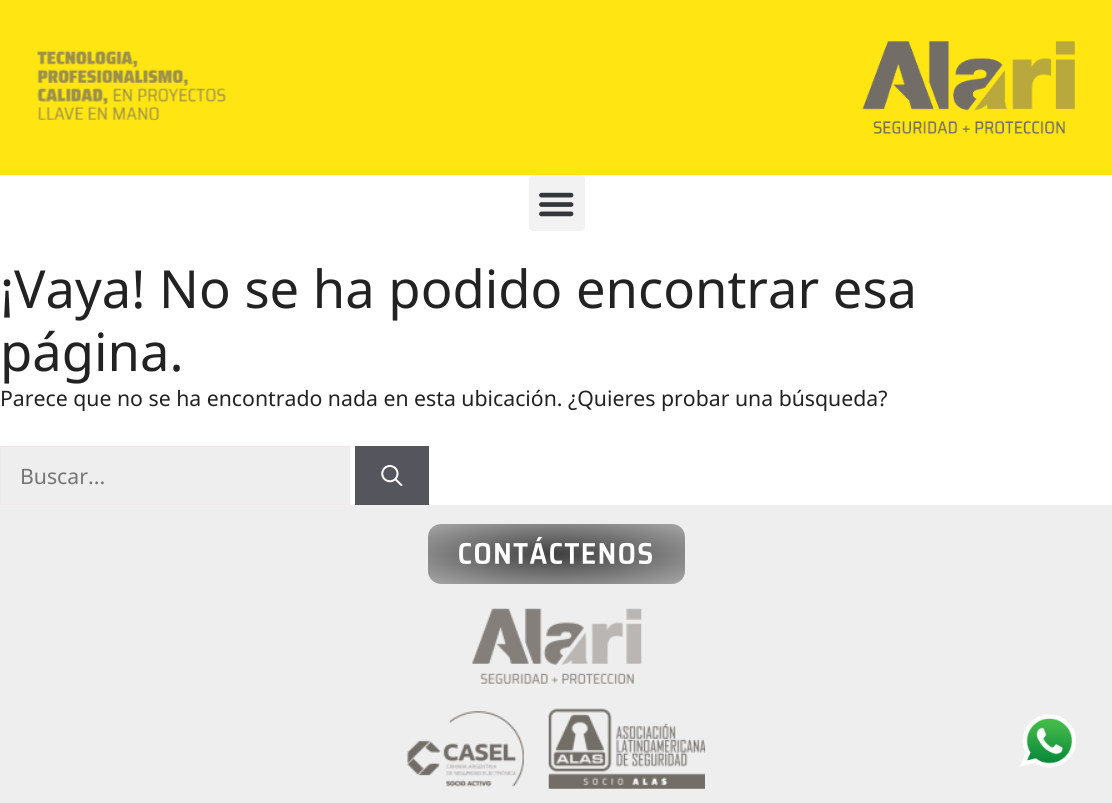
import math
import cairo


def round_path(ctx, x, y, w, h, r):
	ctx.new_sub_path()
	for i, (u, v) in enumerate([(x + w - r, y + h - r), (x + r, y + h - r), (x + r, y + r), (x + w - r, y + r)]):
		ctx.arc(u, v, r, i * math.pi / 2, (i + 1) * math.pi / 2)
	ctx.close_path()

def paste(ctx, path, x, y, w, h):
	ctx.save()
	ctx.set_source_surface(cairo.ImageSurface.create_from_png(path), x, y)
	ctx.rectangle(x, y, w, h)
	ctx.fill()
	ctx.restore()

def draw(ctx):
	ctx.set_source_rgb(1, 1, 1)
	ctx.paint()
	ctx.set_source_rgb(1, 0.898, 0.071)
	ctx.rectangle(0, 0, 1112, 175)
	ctx.fill()
	paste(ctx, 'media/1.png', 37, 50, 189, 71)
	paste(ctx, 'media/2.png', 862, 41, 213, 93)
	ctx.set_source_rgb(0.949, 0.949, 0.949)
	round_path(ctx, 529, 175, 56, 56, 4)
	ctx.fill()
	paste(ctx, 'media/3.png', 539, 192, 35, 25)
	ctx.select_font_face('Noto Sans')
	ctx.set_font_size(52.5)
	ctx.set_source_rgb(0.133, 0.133, 0.133)
	ctx.move_to(0, 308)
	ctx.show_text('¡Vaya! No se ha podido encontrar esa')
	ctx.move_to(0, 371)
	ctx.show_text('página.')
	ctx.set_font_size(21.25)
	ctx.move_to(0, 406)
	ctx.show_text('Parece que no se ha encontrado nada en esta ubicación. ¿Quieres probar una búsqueda?')
	ctx.set_source_rgb(0.933, 0.933, 0.933)
	ctx.rectangle(0.5, 446.5, 349, 58)
	ctx.fill_preserve()
	ctx.set_source_rgb(0.949, 0.902, 0.929)
	ctx.set_line_width(1)
	ctx.stroke()
	ctx.set_source_rgb(0.459, 0.459, 0.459)
	ctx.move_to(20, 484)
	ctx.show_text('Buscar...')
	ctx.set_source_rgb(0.333, 0.333, 0.369)
	ctx.rectangle(355, 446, 74, 59)
	ctx.fill()
	paste(ctx, 'media/4.png', 381, 465, 22, 21)
	ctx.set_source_rgb(0.933, 0.933, 0.933)
	ctx.rectangle(0, 505, 1112, 298)
	ctx.fill()
	gradient = cairo.RadialGradient(0, 0, 0, 0, 0, 1)
	gradient.set_matrix(cairo.Matrix(1 / 182, 0, 0, 1 / 42, -1 * 556 / 182, -1 * 554 / 42))
	gradient.add_color_stop_rgba(0, 0.251, 0.251, 0.251, 1)
	gradient.add_color_stop_rgba(1, 0.651, 0.651, 0.651, 1)
	ctx.set_source(gradient)
	round_path(ctx, 428, 524, 257, 60, 13)
	ctx.fill()
	paste(ctx, 'media/5.png', 459, 536, 193, 28)
	paste(ctx, 'media/6.png', 472, 608, 170, 76)
	paste(ctx, 'media/7.png', 407, 711, 117, 76)
	paste(ctx, 'media/8.png', 548, 708, 157, 81)
	paste(ctx, 'media/9.png', 1020, 714, 56, 54)


surface = cairo.ImageSurface(cairo.FORMAT_RGB24, 1112, 803)
ctx = cairo.Context(surface)
options = cairo.FontOptions()
options.set_hint_metrics(cairo.HINT_METRICS_OFF)
options.set_hint_style(cairo.HINT_STYLE_NONE)
ctx.set_font_options(options)
ctx.set_miter_limit(4)
draw(ctx)
surface.write_to_png('image.png')
